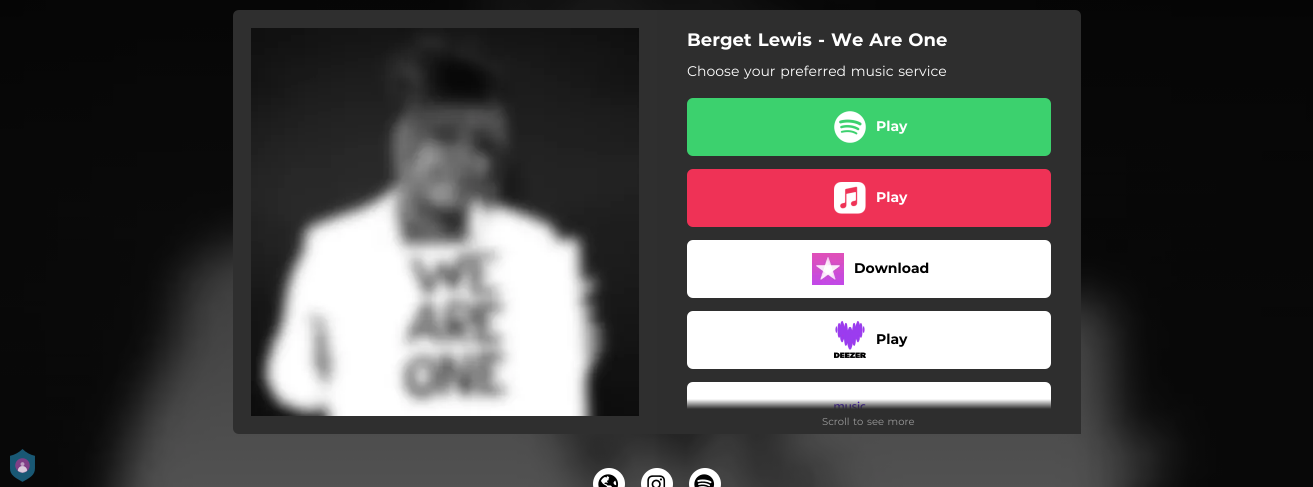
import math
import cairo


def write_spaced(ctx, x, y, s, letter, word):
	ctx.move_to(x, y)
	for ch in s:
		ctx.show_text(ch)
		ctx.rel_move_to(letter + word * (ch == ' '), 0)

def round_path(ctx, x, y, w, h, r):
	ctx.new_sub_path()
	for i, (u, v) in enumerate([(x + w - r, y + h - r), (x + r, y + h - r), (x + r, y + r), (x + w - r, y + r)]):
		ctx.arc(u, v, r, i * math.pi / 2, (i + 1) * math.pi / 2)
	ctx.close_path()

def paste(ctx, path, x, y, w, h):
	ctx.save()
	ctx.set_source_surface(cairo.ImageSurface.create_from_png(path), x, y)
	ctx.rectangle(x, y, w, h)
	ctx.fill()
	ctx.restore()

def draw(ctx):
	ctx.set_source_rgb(1, 1, 1)
	ctx.paint()
	paste(ctx, 'media/1.png', 0, 0, 1313, 487)
	ctx.set_source_rgb(0.184, 0.184, 0.184)
	ctx.new_path()
	ctx.move_to(239, 10)
	ctx.line_to(657, 10)
	ctx.line_to(657, 434)
	ctx.line_to(239, 434)
	ctx.curve_to(235.5, 434, 233, 431.5, 233, 428)
	ctx.line_to(233, 16)
	ctx.curve_to(233, 12.5, 235.5, 10, 239, 10)
	ctx.close_path()
	ctx.fill()
	paste(ctx, 'media/2.png', 251, 28, 388, 388)
	ctx.set_source_rgb(0.18, 0.18, 0.18)
	ctx.new_path()
	ctx.move_to(657, 10)
	ctx.line_to(1075, 10)
	ctx.curve_to(1078.5, 10, 1081, 12.5, 1081, 16)
	ctx.line_to(1081, 428)
	ctx.curve_to(1081, 431.5, 1078.5, 434, 1075, 434)
	ctx.line_to(657, 434)
	ctx.close_path()
	ctx.fill()
	ctx.select_font_face('Montserrat', cairo.FONT_SLANT_NORMAL, cairo.FONT_WEIGHT_BOLD)
	ctx.set_font_size(18)
	ctx.set_source_rgb(1, 1, 1)
	write_spaced(ctx, 687, 46, 'Berget Lewis - We Are One', 0, 1)
	ctx.select_font_face('Montserrat')
	ctx.set_font_size(14)
	write_spaced(ctx, 687, 76, 'Choose your preferred music service', 0, 1)
	ctx.set_source_rgb(0.235, 0.82, 0.431)
	round_path(ctx, 687, 98, 364, 58, 6)
	ctx.fill()
	paste(ctx, 'media/3.png', 834, 111, 32, 32)
	ctx.select_font_face('Montserrat', cairo.FONT_SLANT_NORMAL, cairo.FONT_WEIGHT_BOLD)
	ctx.set_source_rgb(1, 1, 1)
	ctx.move_to(876, 131)
	ctx.show_text('Play')
	ctx.set_source_rgb(0.937, 0.196, 0.337)
	round_path(ctx, 687, 169, 364, 58, 6)
	ctx.fill()
	paste(ctx, 'media/4.png', 834, 182, 32, 32)
	ctx.set_source_rgb(1, 1, 1)
	ctx.move_to(876, 202)
	ctx.show_text('Play')
	round_path(ctx, 687, 240, 364, 58, 6)
	ctx.fill()
	paste(ctx, 'media/5.png', 812, 253, 32, 32)
	ctx.set_source_rgb(0, 0, 0)
	ctx.move_to(854, 273)
	ctx.show_text('Download')
	ctx.set_source_rgb(1, 1, 1)
	round_path(ctx, 687, 311, 364, 58, 6)
	ctx.fill()
	paste(ctx, 'media/6.png', 834, 321, 32, 37)
	ctx.set_source_rgb(0, 0, 0)
	ctx.move_to(876, 344)
	ctx.show_text('Play')
	ctx.set_source_rgb(1, 1, 1)
	ctx.new_path()
	ctx.move_to(693, 382)
	ctx.line_to(1045, 382)
	ctx.curve_to(1048.5, 382, 1051, 384.5, 1051, 388)
	ctx.line_to(1051, 434)
	ctx.line_to(687, 434)
	ctx.line_to(687, 388)
	ctx.curve_to(687, 384.5, 689.5, 382, 693, 382)
	ctx.close_path()
	ctx.fill()
	paste(ctx, 'media/7.png', 834, 401, 32, 8)
	gradient = cairo.LinearGradient(869, 409, 869, 399)
	gradient.add_color_stop_rgba(0, 0.18, 0.18, 0.18, 1)
	gradient.add_color_stop_rgba(1, 0.18, 0.18, 0.18, 0)
	ctx.set_source(gradient)
	ctx.rectangle(687, 399, 364, 10)
	ctx.fill()
	ctx.set_source_rgb(0.18, 0.18, 0.18)
	ctx.rectangle(687, 409, 394, 25)
	ctx.fill()
	ctx.select_font_face('Montserrat')
	ctx.set_font_size(10)
	ctx.set_source_rgb(0.6, 0.6, 0.6)
	write_spaced(ctx, 822, 425, 'Scroll to see more', 0, 1)
	ctx.set_source_rgb(1, 1, 1)
	ctx.new_path()
	ctx.arc(609, 484, 16, 0, 2 * math.pi)
	ctx.fill()
	paste(ctx, 'media/8.png', 598, 474, 21, 13)
	ctx.arc(657, 484, 16, 0, 2 * math.pi)
	ctx.fill()
	paste(ctx, 'media/9.png', 647, 475, 19, 12)
	ctx.arc(705, 484, 16, 0, 2 * math.pi)
	ctx.fill()
	paste(ctx, 'media/10.png', 694, 474, 21, 13)
	paste(ctx, 'media/11.png', 10, 449, 25, 33)


surface = cairo.ImageSurface(cairo.FORMAT_RGB24, 1313, 487)
ctx = cairo.Context(surface)
options = cairo.FontOptions()
options.set_hint_metrics(cairo.HINT_METRICS_OFF)
options.set_hint_style(cairo.HINT_STYLE_NONE)
ctx.set_font_options(options)
ctx.set_miter_limit(4)
draw(ctx)
surface.write_to_png('image.png')
